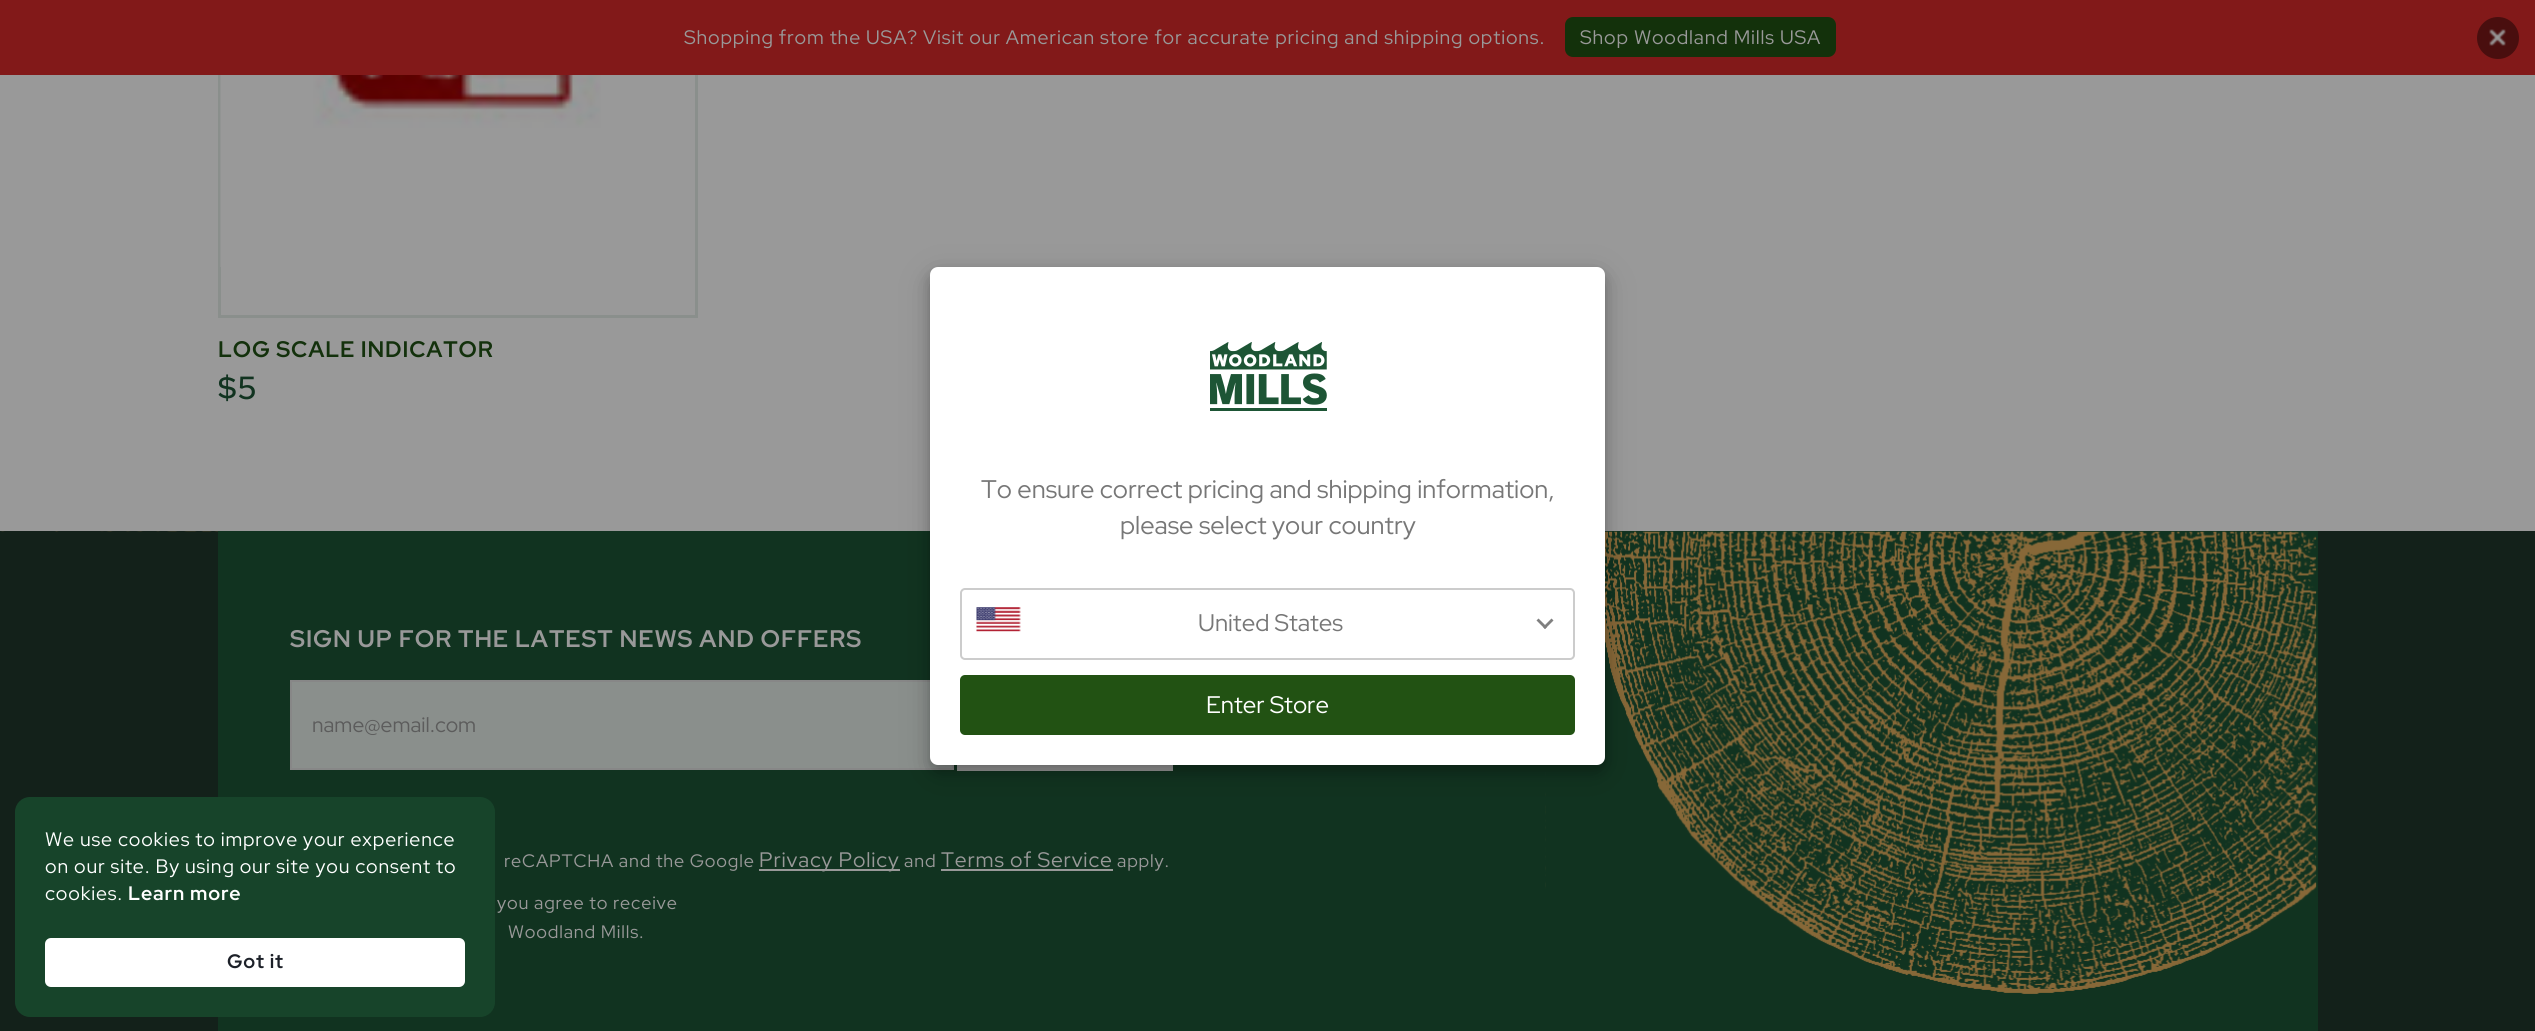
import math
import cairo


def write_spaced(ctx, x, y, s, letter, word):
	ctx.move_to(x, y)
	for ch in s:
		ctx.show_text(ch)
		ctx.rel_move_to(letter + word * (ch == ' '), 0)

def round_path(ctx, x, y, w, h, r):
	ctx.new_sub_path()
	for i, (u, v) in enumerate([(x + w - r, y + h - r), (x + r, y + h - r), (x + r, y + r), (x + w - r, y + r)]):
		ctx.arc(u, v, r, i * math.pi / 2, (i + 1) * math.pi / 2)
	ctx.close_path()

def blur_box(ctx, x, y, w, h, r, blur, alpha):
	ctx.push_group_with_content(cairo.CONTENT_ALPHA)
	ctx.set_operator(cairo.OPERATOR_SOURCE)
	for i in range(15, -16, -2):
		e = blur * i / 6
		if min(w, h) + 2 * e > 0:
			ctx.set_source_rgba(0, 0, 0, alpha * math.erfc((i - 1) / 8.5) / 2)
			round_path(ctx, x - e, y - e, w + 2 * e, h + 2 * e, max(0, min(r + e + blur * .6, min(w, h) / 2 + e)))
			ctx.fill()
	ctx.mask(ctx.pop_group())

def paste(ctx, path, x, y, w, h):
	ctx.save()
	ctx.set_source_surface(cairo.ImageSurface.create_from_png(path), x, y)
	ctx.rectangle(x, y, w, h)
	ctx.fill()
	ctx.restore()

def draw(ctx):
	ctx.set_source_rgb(0.6, 0.6, 0.6)
	ctx.paint()
	ctx.rectangle(219.5, -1.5, 477, 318)
	ctx.set_source_rgb(0.541, 0.561, 0.549)
	ctx.set_line_width(3)
	ctx.stroke()
	ctx.set_source_rgb(0.51, 0.098, 0.098)
	ctx.rectangle(0, 0, 2535, 75)
	ctx.fill()
	ctx.select_font_face('Red Hat Display')
	ctx.set_font_size(19.5)
	ctx.set_source_rgb(0.6, 0.6, 0.6)
	write_spaced(ctx, 684, 44, 'Shopping from the USA? Visit our American store for accurate pricing and shipping options.', 0.85, 0)
	ctx.set_source_rgb(0.078, 0.192, 0.043)
	round_path(ctx, 1565, 17, 271, 40, 8)
	ctx.fill()
	ctx.set_source_rgb(0.6, 0.6, 0.6)
	write_spaced(ctx, 1580, 44, 'Shop Woodland Mills USA', 0.85, 0)
	ctx.set_source_rgb(0.286, 0.055, 0.055)
	ctx.new_path()
	ctx.arc(2498, 38, 21, 0, 2 * math.pi)
	ctx.fill()
	paste(ctx, 'media/1.png', 2489, 29, 17, 17)
	paste(ctx, 'media/2.png', 220, 75, 381, 192)
	ctx.select_font_face('Red Hat Display', cairo.FONT_SLANT_NORMAL, cairo.FONT_WEIGHT_BOLD)
	ctx.set_font_size(22.5)
	ctx.set_source_rgb(0.078, 0.192, 0.047)
	write_spaced(ctx, 218, 357, 'LOG SCALE INDICATOR', 0.9, 0)
	ctx.select_font_face('Red Hat Display SemiBold')
	ctx.set_font_size(32)
	ctx.set_source_rgb(0.067, 0.2, 0.125)
	write_spaced(ctx, 218, 399, '$5', 0.85, 0)
	ctx.set_source_rgb(0.078, 0.129, 0.102)
	ctx.rectangle(0, 531, 2535, 500)
	ctx.fill()
	ctx.set_source_rgb(0.067, 0.2, 0.125)
	ctx.rectangle(218, 531, 2100, 500)
	ctx.fill()
	ctx.set_source_rgb(0.541, 0.561, 0.549)
	ctx.rectangle(291, 681, 662, 88)
	ctx.fill_preserve()
	ctx.set_source_rgb(0.529, 0.529, 0.529)
	ctx.set_line_width(2)
	ctx.stroke()
	ctx.set_source_rgb(0.6, 0.6, 0.6)
	ctx.rectangle(957, 765, 216, 6)
	ctx.fill()
	paste(ctx, 'media/6.png', 1545, 531, 772, 463)
	ctx.set_source_rgb(0, 0, 0)
	blur_box(ctx, 930, 276, 675, 498, 8, 15, 0.19)
	blur_box(ctx, 930, 273, 675, 498, 8, 6, 0.2)
	ctx.set_source_rgb(1, 1, 1)
	round_path(ctx, 930, 267, 675, 498, 8)
	ctx.fill()
	paste(ctx, 'media/3.png', 1210, 342, 117, 69)
	ctx.select_font_face('Red Hat Display')
	ctx.set_font_size(25.5)
	ctx.set_source_rgb(0.467, 0.467, 0.467)
	ctx.move_to(981, 498)
	ctx.show_text('To ensure correct pricing and shipping information,')
	ctx.move_to(1120, 534)
	ctx.show_text('please select your country')
	round_path(ctx, 961, 589, 613, 70, 4)
	ctx.set_source_rgb(0.8, 0.8, 0.8)
	ctx.stroke()
	paste(ctx, 'media/4.png', 976, 607, 45, 25)
	ctx.set_font_size(24)
	ctx.set_source_rgb(0.467, 0.467, 0.467)
	ctx.move_to(1198, 631)
	ctx.show_text('United States')
	ctx.set_source_rgb(0.502, 0.502, 0.502)
	ctx.new_path()
	ctx.move_to(1551.5, 618.5)
	ctx.line_to(1553.5, 620.5)
	ctx.line_to(1545, 629)
	ctx.line_to(1543, 627)
	ctx.close_path()
	ctx.fill()
	ctx.new_path()
	ctx.move_to(1538.5, 618.5)
	ctx.line_to(1547, 627)
	ctx.line_to(1545, 629)
	ctx.line_to(1536.5, 620.5)
	ctx.close_path()
	ctx.fill()
	ctx.set_source_rgb(0.133, 0.322, 0.075)
	round_path(ctx, 960, 675, 615, 60, 5)
	ctx.fill()
	ctx.set_source_rgb(1, 1, 1)
	ctx.move_to(1206, 713)
	ctx.show_text('Enter Store')
	ctx.set_source_rgb(0.09, 0.267, 0.165)
	round_path(ctx, 15, 797, 480, 220, 15)
	ctx.fill()
	ctx.set_font_size(19.5)
	ctx.set_source_rgb(1, 1, 1)
	for x, y, s in [
		(45, 846, 'We use cookies to improve your experience'),
		(45, 873, 'on our site. By using our site you consent to'),
		(45, 900, 'cookies.'),
	]:
		write_spaced(ctx, x, y, s, 0.85, 0)
	ctx.select_font_face('Red Hat Display', cairo.FONT_SLANT_NORMAL, cairo.FONT_WEIGHT_BOLD)
	write_spaced(ctx, 128, 900, 'Learn more', 0.85, 0)
	round_path(ctx, 45, 938, 420, 49, 6)
	ctx.fill()
	ctx.set_source_rgb(0.114, 0.129, 0.161)
	write_spaced(ctx, 227, 968, 'Got it', 0.85, 0)
	paste(ctx, 'media/5.png', 1, 531, 217, 1)
	ctx.set_font_size(24)
	ctx.set_source_rgb(0.6, 0.6, 0.6)
	write_spaced(ctx, 290, 647, 'SIGN UP FOR THE LATEST NEWS AND OFFERS', 0.95, 0)
	ctx.select_font_face('Red Hat Display')
	ctx.set_font_size(21)
	ctx.set_source_rgb(0.361, 0.361, 0.361)
	ctx.move_to(312, 732)
	ctx.show_text('name@email.com')
	ctx.set_font_size(18)
	ctx.set_source_rgb(0.6, 0.6, 0.6)
	write_spaced(ctx, 504, 867, 'reCAPTCHA and the Google', 0.85, 0)
	ctx.rectangle(759, 869, 141, 2)
	ctx.fill()
	ctx.set_font_size(21)
	write_spaced(ctx, 759, 867, 'Privacy Policy', 0.85, 0)
	ctx.set_font_size(18)
	write_spaced(ctx, 904, 867, 'and', 0.85, 0)
	ctx.set_font_size(21)
	write_spaced(ctx, 941, 867, 'Terms of Service', 0.85, 0)
	ctx.set_font_size(18)
	write_spaced(ctx, 1117, 867, 'apply.', 0.85, 0)
	ctx.rectangle(941, 869, 172, 2)
	ctx.fill()
	write_spaced(ctx, 497, 909, 'you agree to receive', 0.85, 0)
	write_spaced(ctx, 508, 938, 'Woodland Mills.', 0.85, 0)


surface = cairo.ImageSurface(cairo.FORMAT_RGB24, 2535, 1031)
ctx = cairo.Context(surface)
options = cairo.FontOptions()
options.set_hint_metrics(cairo.HINT_METRICS_OFF)
options.set_hint_style(cairo.HINT_STYLE_NONE)
ctx.set_font_options(options)
ctx.set_miter_limit(4)
draw(ctx)
surface.write_to_png('image.png')
